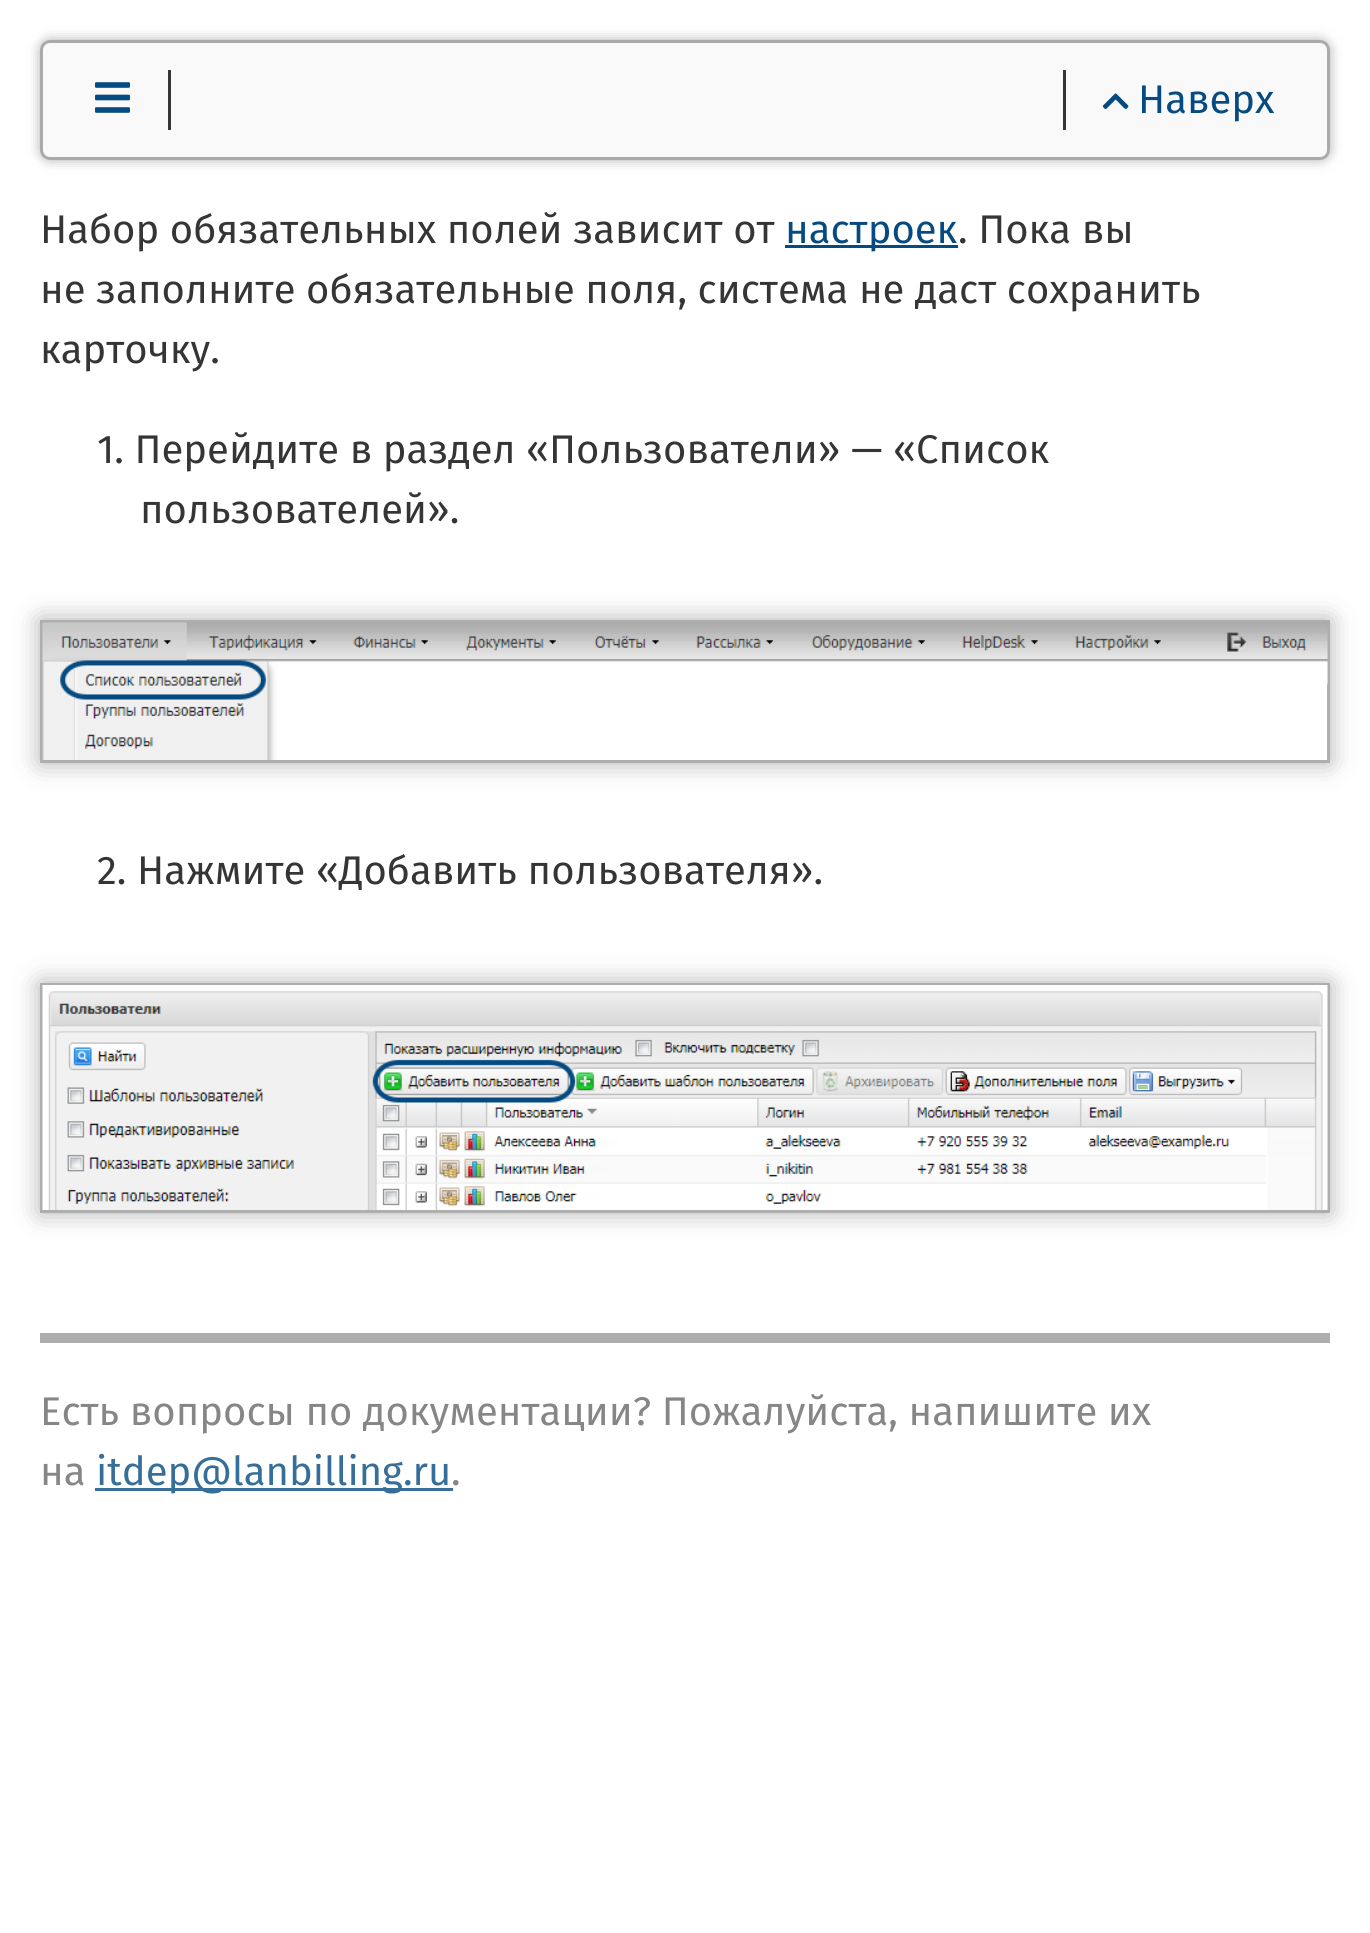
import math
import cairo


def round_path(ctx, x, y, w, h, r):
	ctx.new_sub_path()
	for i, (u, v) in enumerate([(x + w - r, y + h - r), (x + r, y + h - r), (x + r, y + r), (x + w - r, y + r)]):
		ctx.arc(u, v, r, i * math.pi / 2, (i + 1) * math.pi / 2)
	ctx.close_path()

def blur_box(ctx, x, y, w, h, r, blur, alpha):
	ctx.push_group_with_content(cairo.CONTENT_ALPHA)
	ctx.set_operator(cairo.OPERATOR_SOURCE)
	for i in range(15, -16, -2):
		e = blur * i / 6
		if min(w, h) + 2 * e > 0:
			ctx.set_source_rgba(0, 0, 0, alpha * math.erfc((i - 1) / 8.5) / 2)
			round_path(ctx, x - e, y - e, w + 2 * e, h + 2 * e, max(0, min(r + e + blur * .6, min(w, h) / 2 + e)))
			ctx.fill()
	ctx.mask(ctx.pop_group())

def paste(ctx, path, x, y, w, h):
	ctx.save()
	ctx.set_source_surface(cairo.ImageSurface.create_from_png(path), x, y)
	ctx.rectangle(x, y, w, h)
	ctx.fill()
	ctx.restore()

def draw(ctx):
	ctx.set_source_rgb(1, 1, 1)
	ctx.paint()
	ctx.set_source_rgb(0.208, 0.208, 0.208)
	blur_box(ctx, 40, 40, 1290, 120, 10, 6, 0.4)
	ctx.set_source_rgb(0.973, 0.973, 0.973)
	round_path(ctx, 40, 40, 1290, 120, 10)
	ctx.fill()
	round_path(ctx, 41.5, 41.5, 1287, 117, 8.5)
	ctx.set_source_rgba(0.208, 0.208, 0.208, 0.4)
	ctx.set_line_width(3)
	ctx.stroke()
	ctx.set_source_rgb(0.208, 0.208, 0.208)
	ctx.rectangle(168, 70, 3, 60)
	ctx.fill()
	paste(ctx, 'media/1.png', 95, 82, 35, 31)
	ctx.rectangle(1063, 70, 3, 60)
	ctx.fill()
	paste(ctx, 'media/2.png', 1102, 93, 27, 16)
	ctx.select_font_face('Fira Sans')
	ctx.set_font_size(40)
	ctx.set_source_rgb(0.02, 0.294, 0.506)
	ctx.move_to(1138, 113)
	ctx.show_text('Наверх')
	ctx.set_source_rgb(0.208, 0.208, 0.208)
	ctx.move_to(40, 243)
	ctx.show_text('Набор обязательных полей зависит от')
	ctx.set_source_rgb(0.02, 0.294, 0.506)
	ctx.rectangle(785, 245, 173, 3)
	ctx.fill()
	ctx.move_to(785, 243)
	ctx.show_text('настроек')
	ctx.set_source_rgb(0.208, 0.208, 0.208)
	for x, y, s in [
		(958, 243, '. Пока вы'),
		(40, 303, 'не заполните обязательные поля, система не даст сохранить'),
		(40, 363, 'карточку.'),
		(97, 463, '1. Перейдите в раздел «Пользователи» — «Список'),
		(140, 523, 'пользователей».'),
	]:
		ctx.move_to(x, y)
		ctx.show_text(s)
	ctx.save()
	ctx.set_fill_rule(cairo.FILL_RULE_EVEN_ODD)
	ctx.new_path()
	ctx.move_to(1, 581)
	ctx.line_to(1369, 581)
	ctx.line_to(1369, 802)
	ctx.line_to(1, 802)
	ctx.close_path()
	ctx.move_to(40, 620)
	ctx.line_to(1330, 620)
	ctx.line_to(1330, 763)
	ctx.line_to(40, 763)
	ctx.close_path()
	ctx.clip()
	ctx.set_source_rgb(0.208, 0.208, 0.208)
	blur_box(ctx, 40, 620, 1290, 143, 0, 12.5, 0.4)
	ctx.restore()
	ctx.rectangle(41.5, 621.5, 1287, 140)
	ctx.set_source_rgba(0.208, 0.208, 0.208, 0.4)
	ctx.stroke()
	paste(ctx, 'media/3.png', 42, 622, 1286, 138)
	ctx.set_source_rgb(0.208, 0.208, 0.208)
	ctx.move_to(97, 884)
	ctx.show_text('2. Нажмите «Добавить пользователя».')
	ctx.save()
	ctx.set_fill_rule(cairo.FILL_RULE_EVEN_ODD)
	ctx.new_path()
	ctx.move_to(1, 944)
	ctx.line_to(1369, 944)
	ctx.line_to(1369, 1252)
	ctx.line_to(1, 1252)
	ctx.close_path()
	ctx.move_to(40, 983)
	ctx.line_to(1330, 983)
	ctx.line_to(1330, 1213)
	ctx.line_to(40, 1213)
	ctx.close_path()
	ctx.clip()
	ctx.set_source_rgb(0.208, 0.208, 0.208)
	blur_box(ctx, 40, 983, 1290, 230, 0, 12.5, 0.4)
	ctx.restore()
	ctx.rectangle(41.5, 984.5, 1287, 227)
	ctx.set_source_rgba(0.208, 0.208, 0.208, 0.4)
	ctx.stroke()
	paste(ctx, 'media/4.png', 42, 985, 1286, 225)
	ctx.set_source_rgb(0.682, 0.682, 0.682)
	ctx.rectangle(40, 1333, 1290, 10)
	ctx.fill()
	ctx.set_source_rgb(0.525, 0.525, 0.525)
	ctx.move_to(40, 1425)
	ctx.show_text('Есть вопросы по документации? Пожалуйста, напишите их')
	ctx.move_to(40, 1485)
	ctx.show_text('на')
	ctx.set_source_rgb(0.216, 0.435, 0.604)
	ctx.rectangle(95, 1488, 358, 3)
	ctx.fill()
	ctx.set_source_rgb(0.212, 0.431, 0.604)
	ctx.move_to(96, 1485)
	ctx.show_text('itdep@lanbilling.ru')
	ctx.set_source_rgb(0.525, 0.525, 0.525)
	ctx.move_to(451, 1485)
	ctx.show_text('.')


surface = cairo.ImageSurface(cairo.FORMAT_RGB24, 1370, 1933)
ctx = cairo.Context(surface)
options = cairo.FontOptions()
options.set_hint_metrics(cairo.HINT_METRICS_OFF)
options.set_hint_style(cairo.HINT_STYLE_NONE)
ctx.set_font_options(options)
ctx.set_miter_limit(4)
draw(ctx)
surface.write_to_png('image.png')
